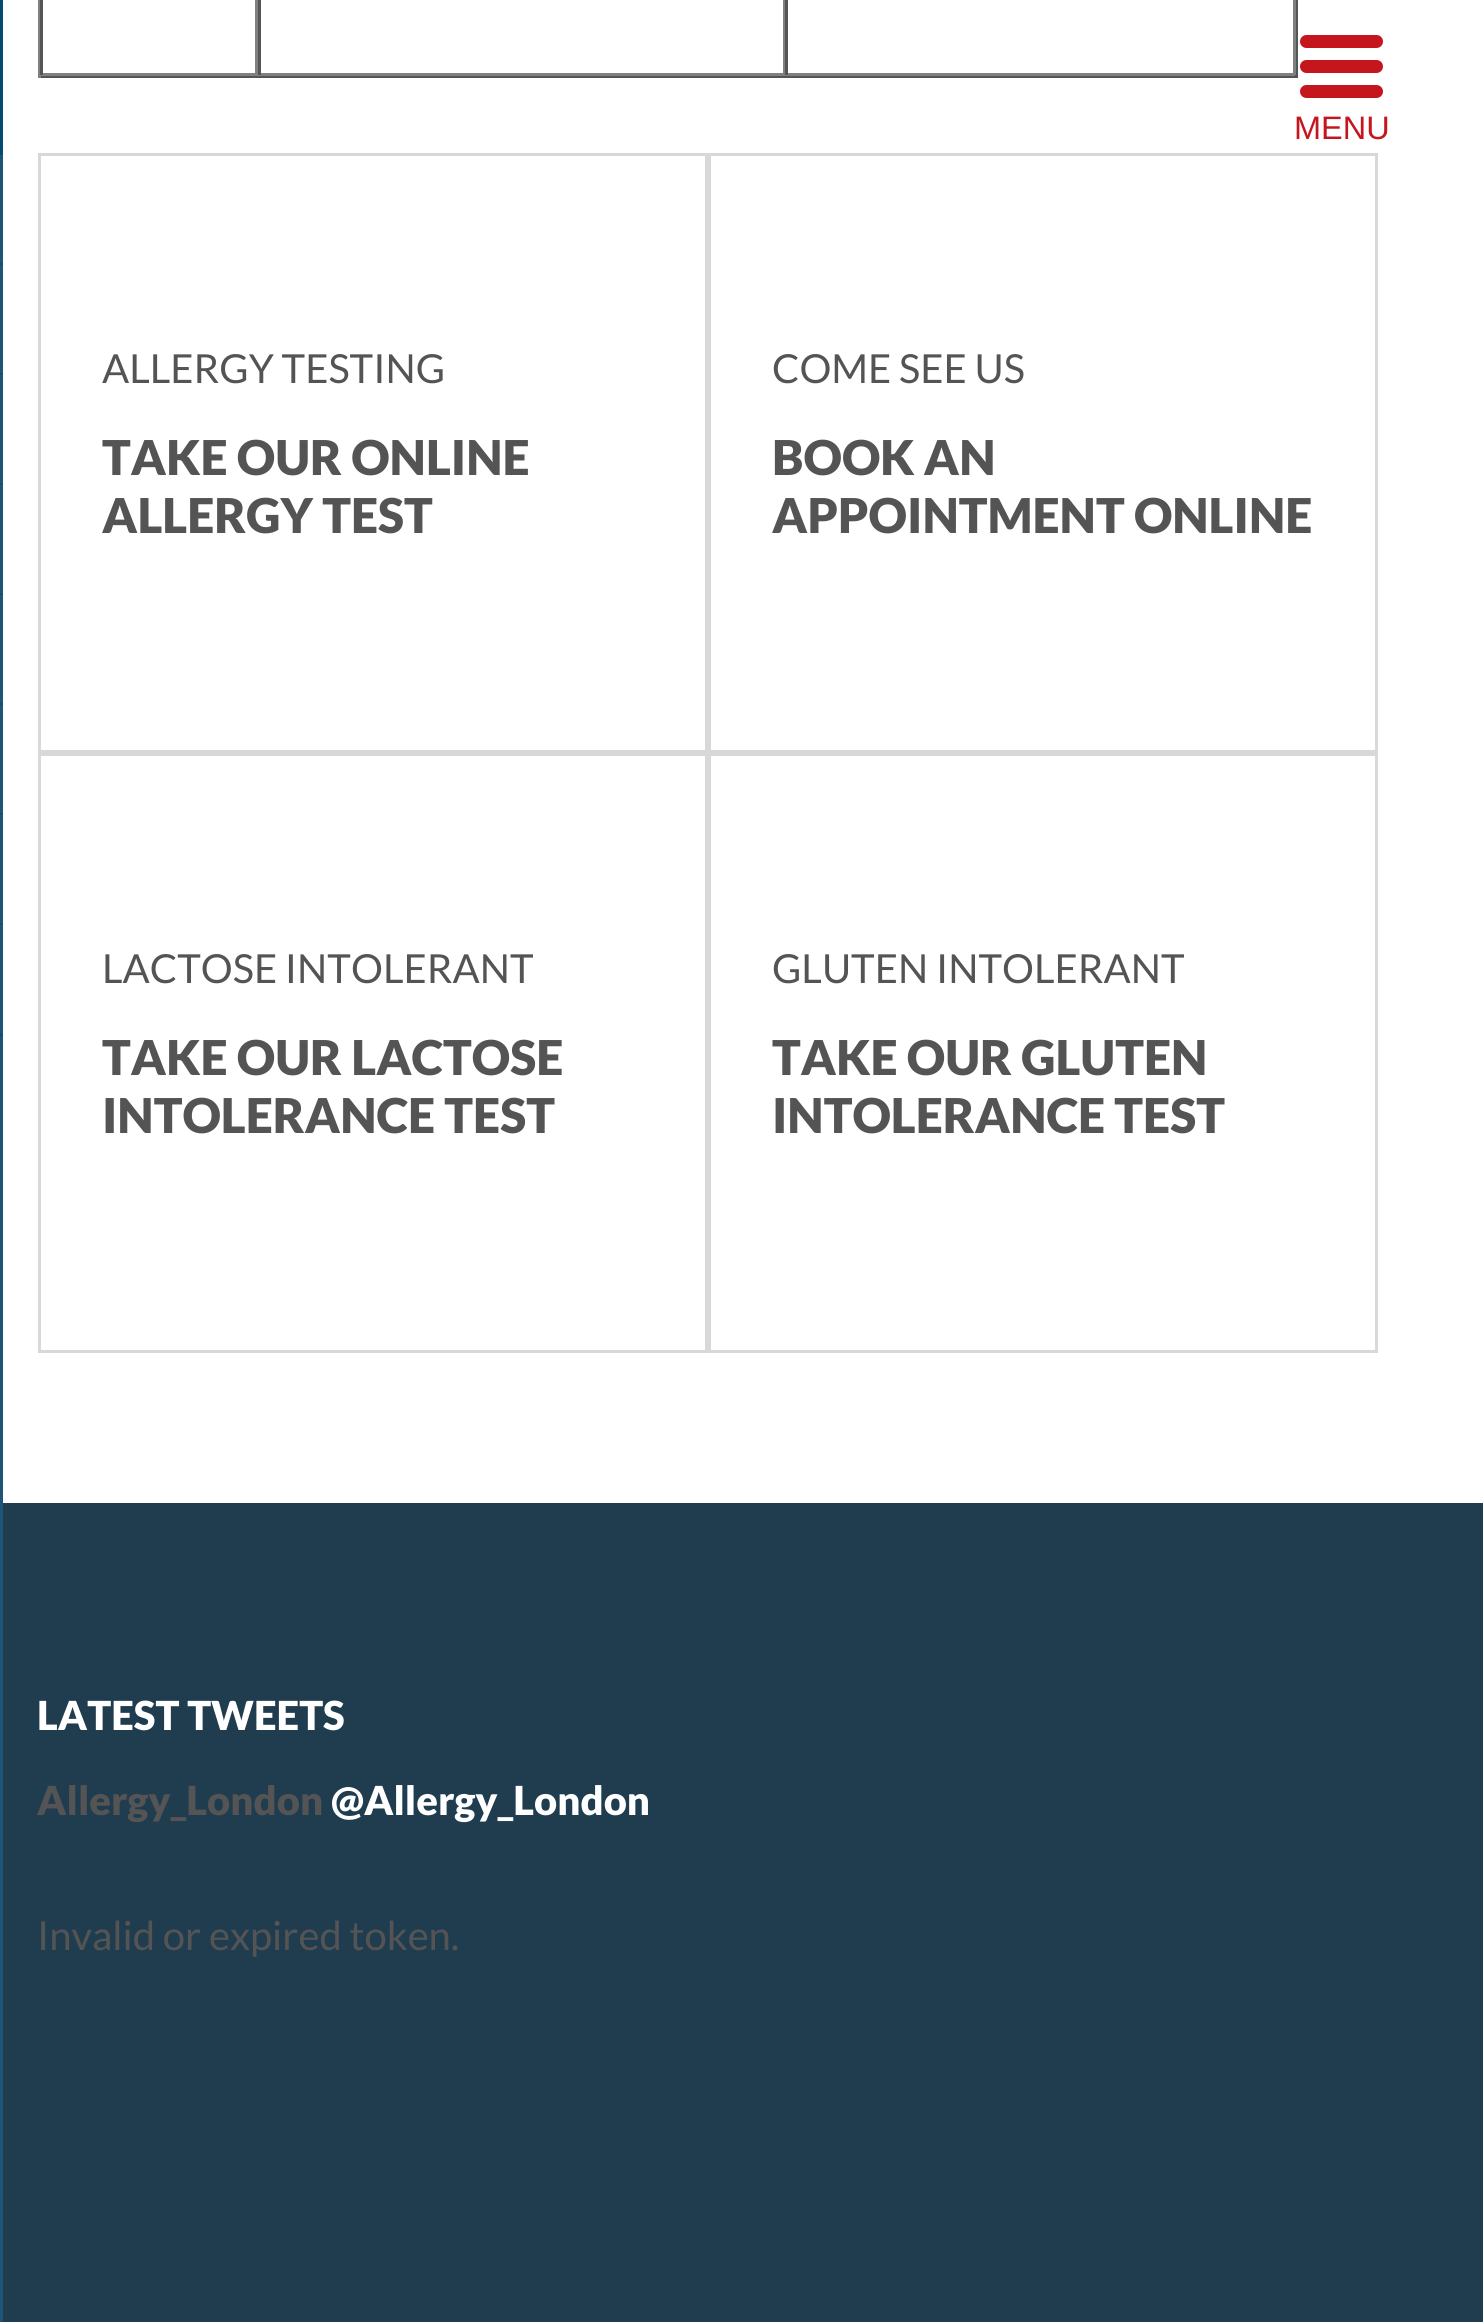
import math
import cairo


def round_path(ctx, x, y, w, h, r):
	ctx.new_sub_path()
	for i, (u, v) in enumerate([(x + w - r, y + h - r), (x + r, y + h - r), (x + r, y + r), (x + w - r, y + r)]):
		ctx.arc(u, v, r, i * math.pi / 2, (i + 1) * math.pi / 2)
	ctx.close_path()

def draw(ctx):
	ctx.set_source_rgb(1, 1, 1)
	ctx.paint()
	ctx.set_source_rgb(0.118, 0.329, 0.459)
	ctx.rectangle(0, 155, 3, 2167)
	ctx.fill()
	ctx.set_source_rgb(0.02, 0.29, 0.459)
	ctx.rectangle(0, 0, 3, 155)
	ctx.fill()
	ctx.set_source_rgb(0.063, 0.306, 0.459)
	ctx.rectangle(0, 263, 3, 2)
	ctx.rectangle(0, 373, 3, 2)
	ctx.rectangle(0, 483, 3, 2)
	ctx.rectangle(0, 593, 3, 2)
	ctx.rectangle(0, 703, 3, 2)
	ctx.rectangle(0, 813, 3, 2)
	ctx.rectangle(0, 923, 3, 2)
	ctx.rectangle(0, 1033, 3, 3)
	ctx.fill()
	ctx.set_source_rgb(0.769, 0.086, 0.11)
	round_path(ctx, 1300, 60, 83, 13, 6.5)
	ctx.fill()
	round_path(ctx, 1300, 35, 83, 13, 6.5)
	ctx.fill()
	round_path(ctx, 1300, 85, 83, 13, 6.5)
	ctx.fill()
	ctx.select_font_face('Liberation Sans')
	ctx.set_font_size(32.5)
	ctx.move_to(1294, 139)
	ctx.show_text('MENU')
	ctx.set_source_rgb(0.333, 0.333, 0.333)
	ctx.rectangle(1296, 0, 2, 78)
	ctx.rectangle(38, 75, 1260, 3)
	ctx.fill()
	ctx.set_source_rgb(0.502, 0.502, 0.502)
	ctx.rectangle(38, 0, 3, 78)
	ctx.rectangle(255, 0, 3, 75)
	ctx.rectangle(40, 73, 218, 3)
	ctx.fill()
	ctx.set_source_rgb(0.333, 0.333, 0.333)
	ctx.rectangle(40, 0, 3, 75)
	ctx.fill()
	ctx.set_source_rgb(0.502, 0.502, 0.502)
	ctx.rectangle(783, 0, 2, 75)
	ctx.rectangle(258, 73, 527, 3)
	ctx.fill()
	ctx.set_source_rgb(0.333, 0.333, 0.333)
	ctx.rectangle(258, 0, 3, 75)
	ctx.fill()
	ctx.set_source_rgb(0.502, 0.502, 0.502)
	ctx.rectangle(1293, 0, 3, 75)
	ctx.rectangle(785, 73, 510, 3)
	ctx.fill()
	ctx.set_source_rgb(0.333, 0.333, 0.333)
	ctx.rectangle(785, 0, 3, 75)
	ctx.fill()
	ctx.rectangle(39.5, 154.5, 667, 597)
	ctx.set_source_rgb(0.851, 0.847, 0.847)
	ctx.set_line_width(3)
	ctx.stroke()
	ctx.select_font_face('Lato')
	ctx.set_font_size(40)
	ctx.set_source_rgb(0.329, 0.329, 0.329)
	ctx.move_to(102, 383)
	ctx.show_text('ALLERGY TESTING')
	ctx.select_font_face('Lato Black')
	ctx.set_font_size(48)
	ctx.move_to(102, 475)
	ctx.show_text('TAKE OUR ONLINE')
	ctx.move_to(102, 533)
	ctx.show_text('ALLERGY TEST')
	ctx.rectangle(709.5, 154.5, 667, 597)
	ctx.set_source_rgb(0.851, 0.847, 0.847)
	ctx.stroke()
	ctx.select_font_face('Lato')
	ctx.set_font_size(40)
	ctx.set_source_rgb(0.329, 0.329, 0.329)
	ctx.move_to(772, 383)
	ctx.show_text('COME SEE US')
	ctx.select_font_face('Lato Black')
	ctx.set_font_size(48)
	ctx.move_to(772, 475)
	ctx.show_text('BOOK AN')
	ctx.move_to(772, 533)
	ctx.show_text('APPOINTMENT ONLINE')
	ctx.rectangle(39.5, 754.5, 667, 597)
	ctx.set_source_rgb(0.851, 0.847, 0.847)
	ctx.stroke()
	ctx.select_font_face('Lato')
	ctx.set_font_size(40)
	ctx.set_source_rgb(0.329, 0.329, 0.329)
	ctx.move_to(102, 983)
	ctx.show_text('LACTOSE INTOLERANT')
	ctx.select_font_face('Lato Black')
	ctx.set_font_size(48)
	ctx.move_to(102, 1075)
	ctx.show_text('TAKE OUR LACTOSE')
	ctx.move_to(102, 1133)
	ctx.show_text('INTOLERANCE TEST')
	ctx.rectangle(709.5, 754.5, 667, 597)
	ctx.set_source_rgb(0.851, 0.847, 0.847)
	ctx.stroke()
	ctx.select_font_face('Lato')
	ctx.set_font_size(40)
	ctx.set_source_rgb(0.329, 0.329, 0.329)
	ctx.move_to(772, 983)
	ctx.show_text('GLUTEN INTOLERANT')
	ctx.select_font_face('Lato Black')
	ctx.set_font_size(48)
	ctx.move_to(772, 1075)
	ctx.show_text('TAKE OUR GLUTEN')
	ctx.move_to(772, 1133)
	ctx.show_text('INTOLERANCE TEST')
	ctx.set_source_rgb(0.125, 0.239, 0.314)
	ctx.rectangle(3, 1503, 1480, 819)
	ctx.fill()
	ctx.set_font_size(40)
	ctx.set_source_rgb(1, 1, 1)
	ctx.move_to(37, 1730)
	ctx.show_text('LATEST TWEETS')
	ctx.set_source_rgb(0.329, 0.329, 0.329)
	ctx.move_to(37, 1815)
	ctx.show_text('Allergy_London')
	ctx.set_source_rgb(1, 1, 1)
	ctx.move_to(331, 1815)
	ctx.show_text('@Allergy_London')
	ctx.select_font_face('Lato')
	ctx.set_source_rgb(0.329, 0.329, 0.329)
	ctx.move_to(37, 1950)
	ctx.show_text('Invalid or expired token.')


surface = cairo.ImageSurface(cairo.FORMAT_RGB24, 1483, 2322)
ctx = cairo.Context(surface)
options = cairo.FontOptions()
options.set_hint_metrics(cairo.HINT_METRICS_OFF)
options.set_hint_style(cairo.HINT_STYLE_NONE)
ctx.set_font_options(options)
ctx.set_miter_limit(4)
draw(ctx)
surface.write_to_png('image.png')
